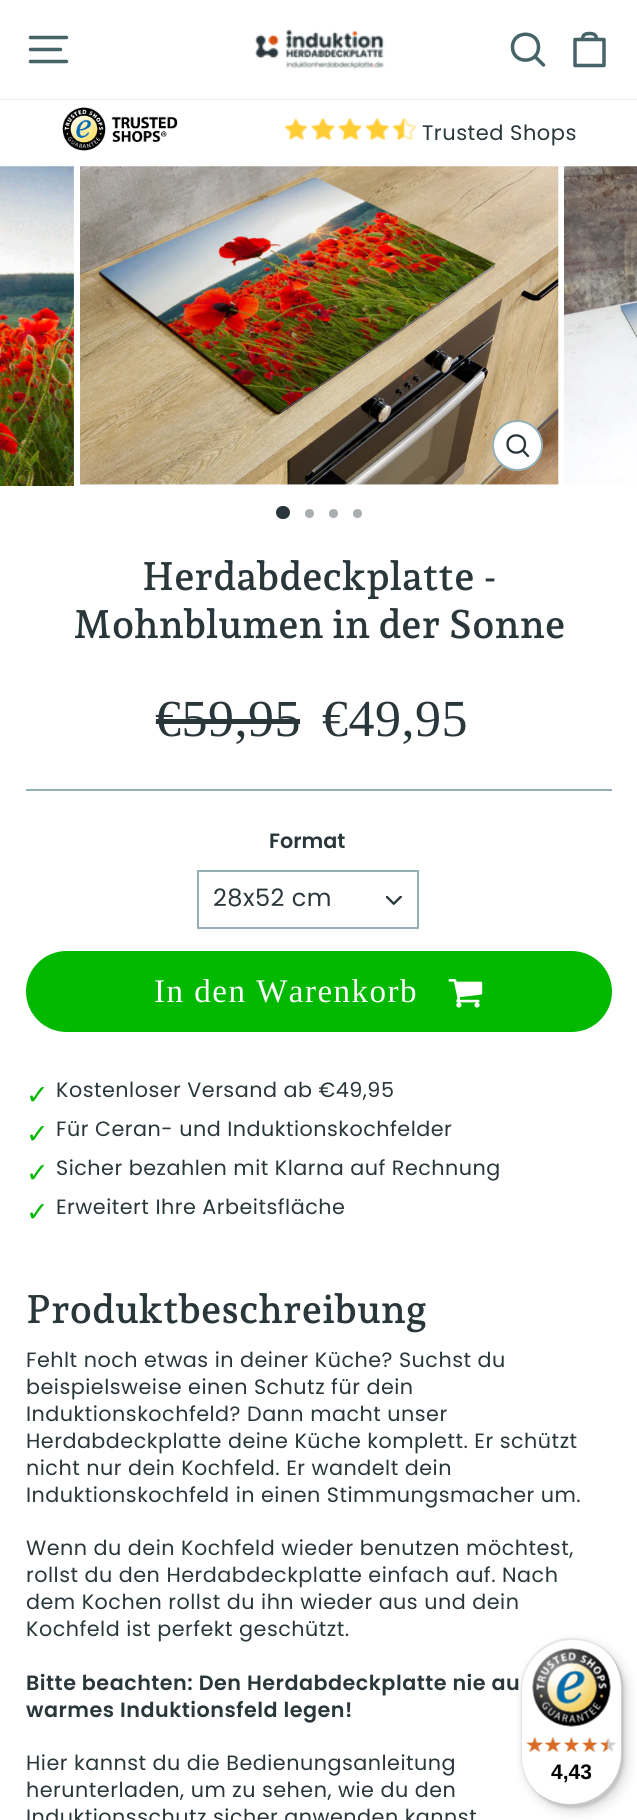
import math
import cairo


def write_spaced(ctx, x, y, s, letter, word):
	ctx.move_to(x, y)
	for ch in s:
		ctx.show_text(ch)
		ctx.rel_move_to(letter + word * (ch == ' '), 0)

def round_path(ctx, x, y, w, h, r):
	ctx.new_sub_path()
	for i, (u, v) in enumerate([(x + w - r, y + h - r), (x + r, y + h - r), (x + r, y + r), (x + w - r, y + r)]):
		ctx.arc(u, v, r, i * math.pi / 2, (i + 1) * math.pi / 2)
	ctx.close_path()

def blur_box(ctx, x, y, w, h, r, blur, alpha):
	ctx.push_group_with_content(cairo.CONTENT_ALPHA)
	ctx.set_operator(cairo.OPERATOR_SOURCE)
	for i in range(15, -16, -2):
		e = blur * i / 6
		if min(w, h) + 2 * e > 0:
			ctx.set_source_rgba(0, 0, 0, alpha * math.erfc((i - 1) / 8.5) / 2)
			round_path(ctx, x - e, y - e, w + 2 * e, h + 2 * e, max(0, min(r + e + blur * .6, min(w, h) / 2 + e)))
			ctx.fill()
	ctx.mask(ctx.pop_group())

def paste(ctx, path, x, y, w, h):
	ctx.save()
	ctx.set_source_surface(cairo.ImageSurface.create_from_png(path), x, y)
	ctx.rectangle(x, y, w, h)
	ctx.fill()
	ctx.restore()

def draw(ctx):
	ctx.set_source_rgb(1, 1, 1)
	ctx.paint()
	ctx.save()
	ctx.rectangle(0, 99, 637, 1)
	ctx.clip()
	ctx.set_source_rgb(0, 0, 0)
	blur_box(ctx, 0, 0, 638, 99, 0, 1, 0.2)
	ctx.restore()
	ctx.new_path()
	ctx.move_to(30.5, 37.5)
	ctx.line_to(66.5, 37.5)
	ctx.move_to(30.5, 49.5)
	ctx.line_to(60.5, 49.5)
	ctx.move_to(30.5, 61.5)
	ctx.line_to(66.5, 61.5)
	ctx.set_source_rgb(0.275, 0.388, 0.408)
	ctx.set_line_width(3.5)
	ctx.set_line_cap(cairo.LINE_CAP_ROUND)
	ctx.set_line_join(cairo.LINE_JOIN_ROUND)
	ctx.stroke()
	paste(ctx, 'media/1.png', 255, 29, 130, 41)
	ctx.new_path()
	ctx.move_to(538.5, 47)
	ctx.curve_to(538.5, 64.5, 512.5, 64.5, 512.5, 47)
	ctx.curve_to(512.5, 30, 538.5, 30, 538.5, 47)
	ctx.close_path()
	ctx.move_to(543.5, 65)
	ctx.line_to(535, 56.5)
	ctx.stroke()
	ctx.new_path()
	ctx.move_to(575, 39.5)
	ctx.line_to(604, 39.5)
	ctx.line_to(604, 65.5)
	ctx.line_to(575, 65.5)
	ctx.close_path()
	ctx.move_to(582.5, 39.5)
	ctx.curve_to(582.5, 34.5, 585.5, 33.5, 589.5, 33.5)
	ctx.curve_to(593.5, 33.5, 596.5, 34.5, 596.5, 39.5)
	ctx.stroke()
	paste(ctx, 'media/2.png', 62, 107, 116, 44)
	paste(ctx, 'media/3.png', 285, 118, 131, 22)
	ctx.select_font_face('Poppins')
	ctx.set_font_size(21)
	ctx.set_source_rgb(0.161, 0.212, 0.227)
	write_spaced(ctx, 422, 140, 'Trusted Shops', 0.5, 0)
	paste(ctx, 'media/4.png', 0, 166, 74, 320)
	paste(ctx, 'media/5.png', 80, 166, 479, 319)
	ctx.set_source_rgb(1, 1, 1)
	ctx.arc(517.5, 445.5, 24.5, 0, 2 * math.pi)
	ctx.fill_preserve()
	ctx.set_source_rgb(0.573, 0.69, 0.714)
	ctx.set_line_width(2)
	ctx.set_line_cap(cairo.LINE_CAP_BUTT)
	ctx.set_line_join(cairo.LINE_JOIN_MITER)
	ctx.stroke()
	ctx.new_path()
	ctx.move_to(525, 444)
	ctx.curve_to(525, 455.5, 507.5, 455.5, 507.5, 444)
	ctx.curve_to(507.5, 432.5, 525, 432.5, 525, 444)
	ctx.close_path()
	ctx.move_to(528, 456)
	ctx.line_to(522.5, 450)
	ctx.set_source_rgb(0.161, 0.212, 0.227)
	ctx.set_line_width(2.3)
	ctx.set_line_cap(cairo.LINE_CAP_ROUND)
	ctx.set_line_join(cairo.LINE_JOIN_ROUND)
	ctx.stroke()
	paste(ctx, 'media/6.png', 564, 166, 73, 319)
	round_path(ctx, 276, 506, 14, 13, 6.5)
	ctx.fill()
	ctx.set_source_rgb(0.663, 0.686, 0.69)
	ctx.arc(309.5, 513.5, 4.5, 0, 2 * math.pi)
	ctx.fill()
	ctx.arc(333.5, 513.5, 4.5, 0, 2 * math.pi)
	ctx.fill()
	ctx.arc(357.5, 513.5, 4.5, 0, 2 * math.pi)
	ctx.fill()
	ctx.select_font_face('Andada Pro SemiBold')
	ctx.set_font_size(39.5)
	ctx.set_source_rgb(0.161, 0.212, 0.227)
	ctx.move_to(142, 590)
	ctx.show_text('Herdabdeckplatte -')
	ctx.move_to(73, 638)
	ctx.show_text('Mohnblumen in der Sonne')
	ctx.select_font_face('Liberation Serif')
	ctx.set_font_size(52)
	write_spaced(ctx, 155, 736, '€59,95', 0.5, 0)
	ctx.rectangle(156, 719, 144, 5)
	ctx.fill()
	write_spaced(ctx, 322, 736, '€49,95', 0.5, 0)
	ctx.set_source_rgb(0.573, 0.69, 0.714)
	ctx.rectangle(26, 789, 586, 2)
	ctx.fill()
	ctx.select_font_face('Poppins SemiBold')
	ctx.set_font_size(20.7)
	ctx.set_source_rgb(0.161, 0.212, 0.227)
	ctx.move_to(269, 848)
	ctx.show_text('Format')
	paste(ctx, 'media/7.png', 386, 896, 16, 9)
	ctx.rectangle(198, 871, 220, 57)
	ctx.set_source_rgb(0.573, 0.69, 0.714)
	ctx.set_line_width(2)
	ctx.set_line_cap(cairo.LINE_CAP_BUTT)
	ctx.set_line_join(cairo.LINE_JOIN_MITER)
	ctx.stroke()
	ctx.select_font_face('Poppins')
	ctx.set_font_size(24)
	ctx.set_source_rgb(0.161, 0.212, 0.227)
	write_spaced(ctx, 213, 906, '28x52 cm', 0.5, 0)
	ctx.set_source_rgb(0, 0.725, 0)
	round_path(ctx, 27.5, 952.5, 583, 78, 39)
	ctx.fill_preserve()
	ctx.set_line_width(3)
	ctx.stroke()
	ctx.select_font_face('Liberation Serif')
	ctx.set_font_size(33)
	ctx.set_source_rgb(1, 1, 1)
	write_spaced(ctx, 154, 1002, 'In den Warenkorb', 1.5, 0)
	paste(ctx, 'media/8.png', 448, 979, 35, 29)
	ctx.select_font_face('DejaVu Sans')
	ctx.set_font_size(27)
	ctx.set_source_rgb(0, 0.725, 0)
	write_spaced(ctx, 26, 1104, '✓', 0.5, 0)
	ctx.select_font_face('Poppins')
	ctx.set_font_size(20.7)
	ctx.set_source_rgb(0.161, 0.212, 0.227)
	write_spaced(ctx, 56, 1097, 'Kostenloser Versand ab €49,95', 0.5, 0)
	ctx.select_font_face('DejaVu Sans')
	ctx.set_font_size(27)
	ctx.set_source_rgb(0, 0.725, 0)
	write_spaced(ctx, 26, 1143, '✓', 0.5, 0)
	ctx.select_font_face('Poppins')
	ctx.set_font_size(20.7)
	ctx.set_source_rgb(0.161, 0.212, 0.227)
	write_spaced(ctx, 56, 1136, 'Für Ceran- und Induktionskochfelder', 0.5, 0)
	ctx.select_font_face('DejaVu Sans')
	ctx.set_font_size(27)
	ctx.set_source_rgb(0, 0.725, 0)
	write_spaced(ctx, 26, 1182, '✓', 0.5, 0)
	ctx.select_font_face('Poppins')
	ctx.set_font_size(20.7)
	ctx.set_source_rgb(0.161, 0.212, 0.227)
	write_spaced(ctx, 56, 1175, 'Sicher bezahlen mit Klarna auf Rechnung', 0.5, 0)
	ctx.select_font_face('DejaVu Sans')
	ctx.set_font_size(27)
	ctx.set_source_rgb(0, 0.725, 0)
	write_spaced(ctx, 26, 1221, '✓', 0.5, 0)
	ctx.select_font_face('Poppins')
	ctx.set_font_size(20.7)
	ctx.set_source_rgb(0.161, 0.212, 0.227)
	write_spaced(ctx, 56, 1214, 'Erweitert Ihre Arbeitsfläche', 0.5, 0)
	ctx.select_font_face('Andada Pro SemiBold')
	ctx.set_font_size(39.5)
	ctx.move_to(26, 1323)
	ctx.show_text('Produktbeschreibung')
	ctx.select_font_face('Poppins')
	ctx.set_font_size(20.7)
	for x, y, s in [
		(26, 1367, 'Fehlt noch etwas in deiner Küche? Suchst du'),
		(26, 1394, 'beispielsweise einen Schutz für dein'),
		(26, 1421, 'Induktionskochfeld? Dann macht unser'),
		(26, 1448, 'Herdabdeckplatte deine Küche komplett. Er schützt'),
		(26, 1475, 'nicht nur dein Kochfeld. Er wandelt dein'),
		(26, 1502, 'Induktionskochfeld in einen Stimmungsmacher um.'),
		(26, 1555, 'Wenn du dein Kochfeld wieder benutzen möchtest,'),
		(26, 1582, 'rollst du den Herdabdeckplatte einfach auf. Nach'),
		(26, 1609, 'dem Kochen rollst du ihn wieder aus und dein'),
		(26, 1636, 'Kochfeld ist perfekt geschützt.'),
	]:
		write_spaced(ctx, x, y, s, 0.5, 0)
	ctx.select_font_face('Poppins SemiBold')
	write_spaced(ctx, 26, 1690, 'Bitte beachten: Den Herdabdeckplatte nie au', 0.5, 0)
	write_spaced(ctx, 26, 1717, 'warmes Induktionsfeld legen!', 0.5, 0)
	ctx.select_font_face('Poppins')
	for x, y, s in [
		(26, 1770, 'Hier kannst du die Bedienungsanleitung'),
		(26, 1797, 'herunterladen, um zu sehen, wie du den'),
		(26, 1824, 'Induktionsschutz sicher anwenden kannst'),
	]:
		write_spaced(ctx, x, y, s, 0.5, 0)
	ctx.set_source_rgb(0, 0, 0)
	blur_box(ctx, 525, 1643, 102, 168, 51, 6, 0.15)
	blur_box(ctx, 522, 1640, 102, 168, 51, 1.5, 0.15)
	ctx.set_source_rgb(1, 1, 1)
	round_path(ctx, 521, 1638, 102, 168, 51)
	ctx.fill()
	ctx.set_source_rgba(0, 0, 0, 0.1)
	ctx.new_path()
	ctx.move_to(573, 1640)
	ctx.curve_to(590, 1640, 605, 1648, 615, 1661)
	ctx.curve_to(606, 1647, 590, 1638, 572, 1638)
	ctx.curve_to(544, 1638, 521, 1661, 521, 1689)
	ctx.line_to(521, 1755)
	ctx.curve_to(521, 1765, 524, 1775, 529, 1783)
	ctx.curve_to(525, 1775, 522, 1766, 522, 1756)
	ctx.line_to(522, 1690)
	ctx.curve_to(522, 1662, 545, 1640, 573, 1640)
	ctx.close_path()
	ctx.fill()
	ctx.set_source_rgba(0, 0, 0, 0.2)
	ctx.new_path()
	ctx.move_to(538, 1793)
	ctx.curve_to(547, 1801, 559, 1806, 572, 1806)
	ctx.curve_to(600, 1806, 623, 1783, 623, 1755)
	ctx.line_to(623, 1689)
	ctx.curve_to(623, 1673, 616, 1659, 605, 1650)
	ctx.curve_to(615, 1659, 621, 1673, 621, 1688)
	ctx.line_to(621, 1754)
	ctx.curve_to(621, 1782, 598, 1804, 570, 1804)
	ctx.curve_to(558, 1804, 547, 1800, 538, 1793)
	ctx.close_path()
	ctx.fill()
	ctx.set_source_rgba(0.196, 0.196, 0.196, 0.2)
	ctx.new_path()
	ctx.move_to(540, 1795)
	ctx.curve_to(549, 1802, 560, 1806, 572, 1806)
	ctx.curve_to(600, 1806, 623, 1783, 623, 1755)
	ctx.line_to(623, 1689)
	ctx.curve_to(623, 1674, 616, 1660, 605, 1650)
	ctx.curve_to(616, 1660, 622, 1673, 622, 1688)
	ctx.line_to(622, 1754)
	ctx.curve_to(622, 1782, 599, 1805, 571, 1805)
	ctx.curve_to(559, 1805, 549, 1801, 540, 1795)
	ctx.close_path()
	ctx.fill()
	ctx.set_source_rgba(1, 1, 1, 0.3)
	ctx.new_path()
	ctx.move_to(533, 1788)
	ctx.curve_to(543, 1799, 557, 1806, 572, 1806)
	ctx.curve_to(600, 1806, 623, 1783, 623, 1755)
	ctx.line_to(623, 1689)
	ctx.curve_to(623, 1674, 616, 1660, 605, 1650)
	ctx.curve_to(616, 1660, 622, 1673, 622, 1688)
	ctx.line_to(622, 1754)
	ctx.curve_to(622, 1782, 599, 1805, 571, 1805)
	ctx.curve_to(556, 1805, 543, 1799, 533, 1788)
	ctx.close_path()
	ctx.fill()
	paste(ctx, 'media/9.png', 532, 1648, 79, 79)
	paste(ctx, 'media/10.png', 526, 1737, 17, 15)
	paste(ctx, 'media/11.png', 546, 1737, 15, 15)
	paste(ctx, 'media/12.png', 564, 1737, 15, 15)
	paste(ctx, 'media/13.png', 582, 1737, 17, 15)
	paste(ctx, 'media/14.png', 600, 1737, 17, 15)
	paste(ctx, 'media/15.png', 526, 1737, 17, 15)
	paste(ctx, 'media/16.png', 544, 1737, 17, 15)
	paste(ctx, 'media/17.png', 564, 1737, 15, 15)
	paste(ctx, 'media/18.png', 582, 1737, 15, 15)
	paste(ctx, 'media/19.png', 600, 1739, 8, 13)
	ctx.select_font_face('Liberation Sans', cairo.FONT_SLANT_NORMAL, cairo.FONT_WEIGHT_BOLD)
	ctx.set_font_size(21)
	ctx.set_source_rgb(0, 0, 0)
	ctx.move_to(551, 1779)
	ctx.show_text('4,43')


surface = cairo.ImageSurface(cairo.FORMAT_RGB24, 637, 1820)
ctx = cairo.Context(surface)
options = cairo.FontOptions()
options.set_hint_metrics(cairo.HINT_METRICS_OFF)
options.set_hint_style(cairo.HINT_STYLE_NONE)
ctx.set_font_options(options)
ctx.set_miter_limit(4)
draw(ctx)
surface.write_to_png('image.png')
